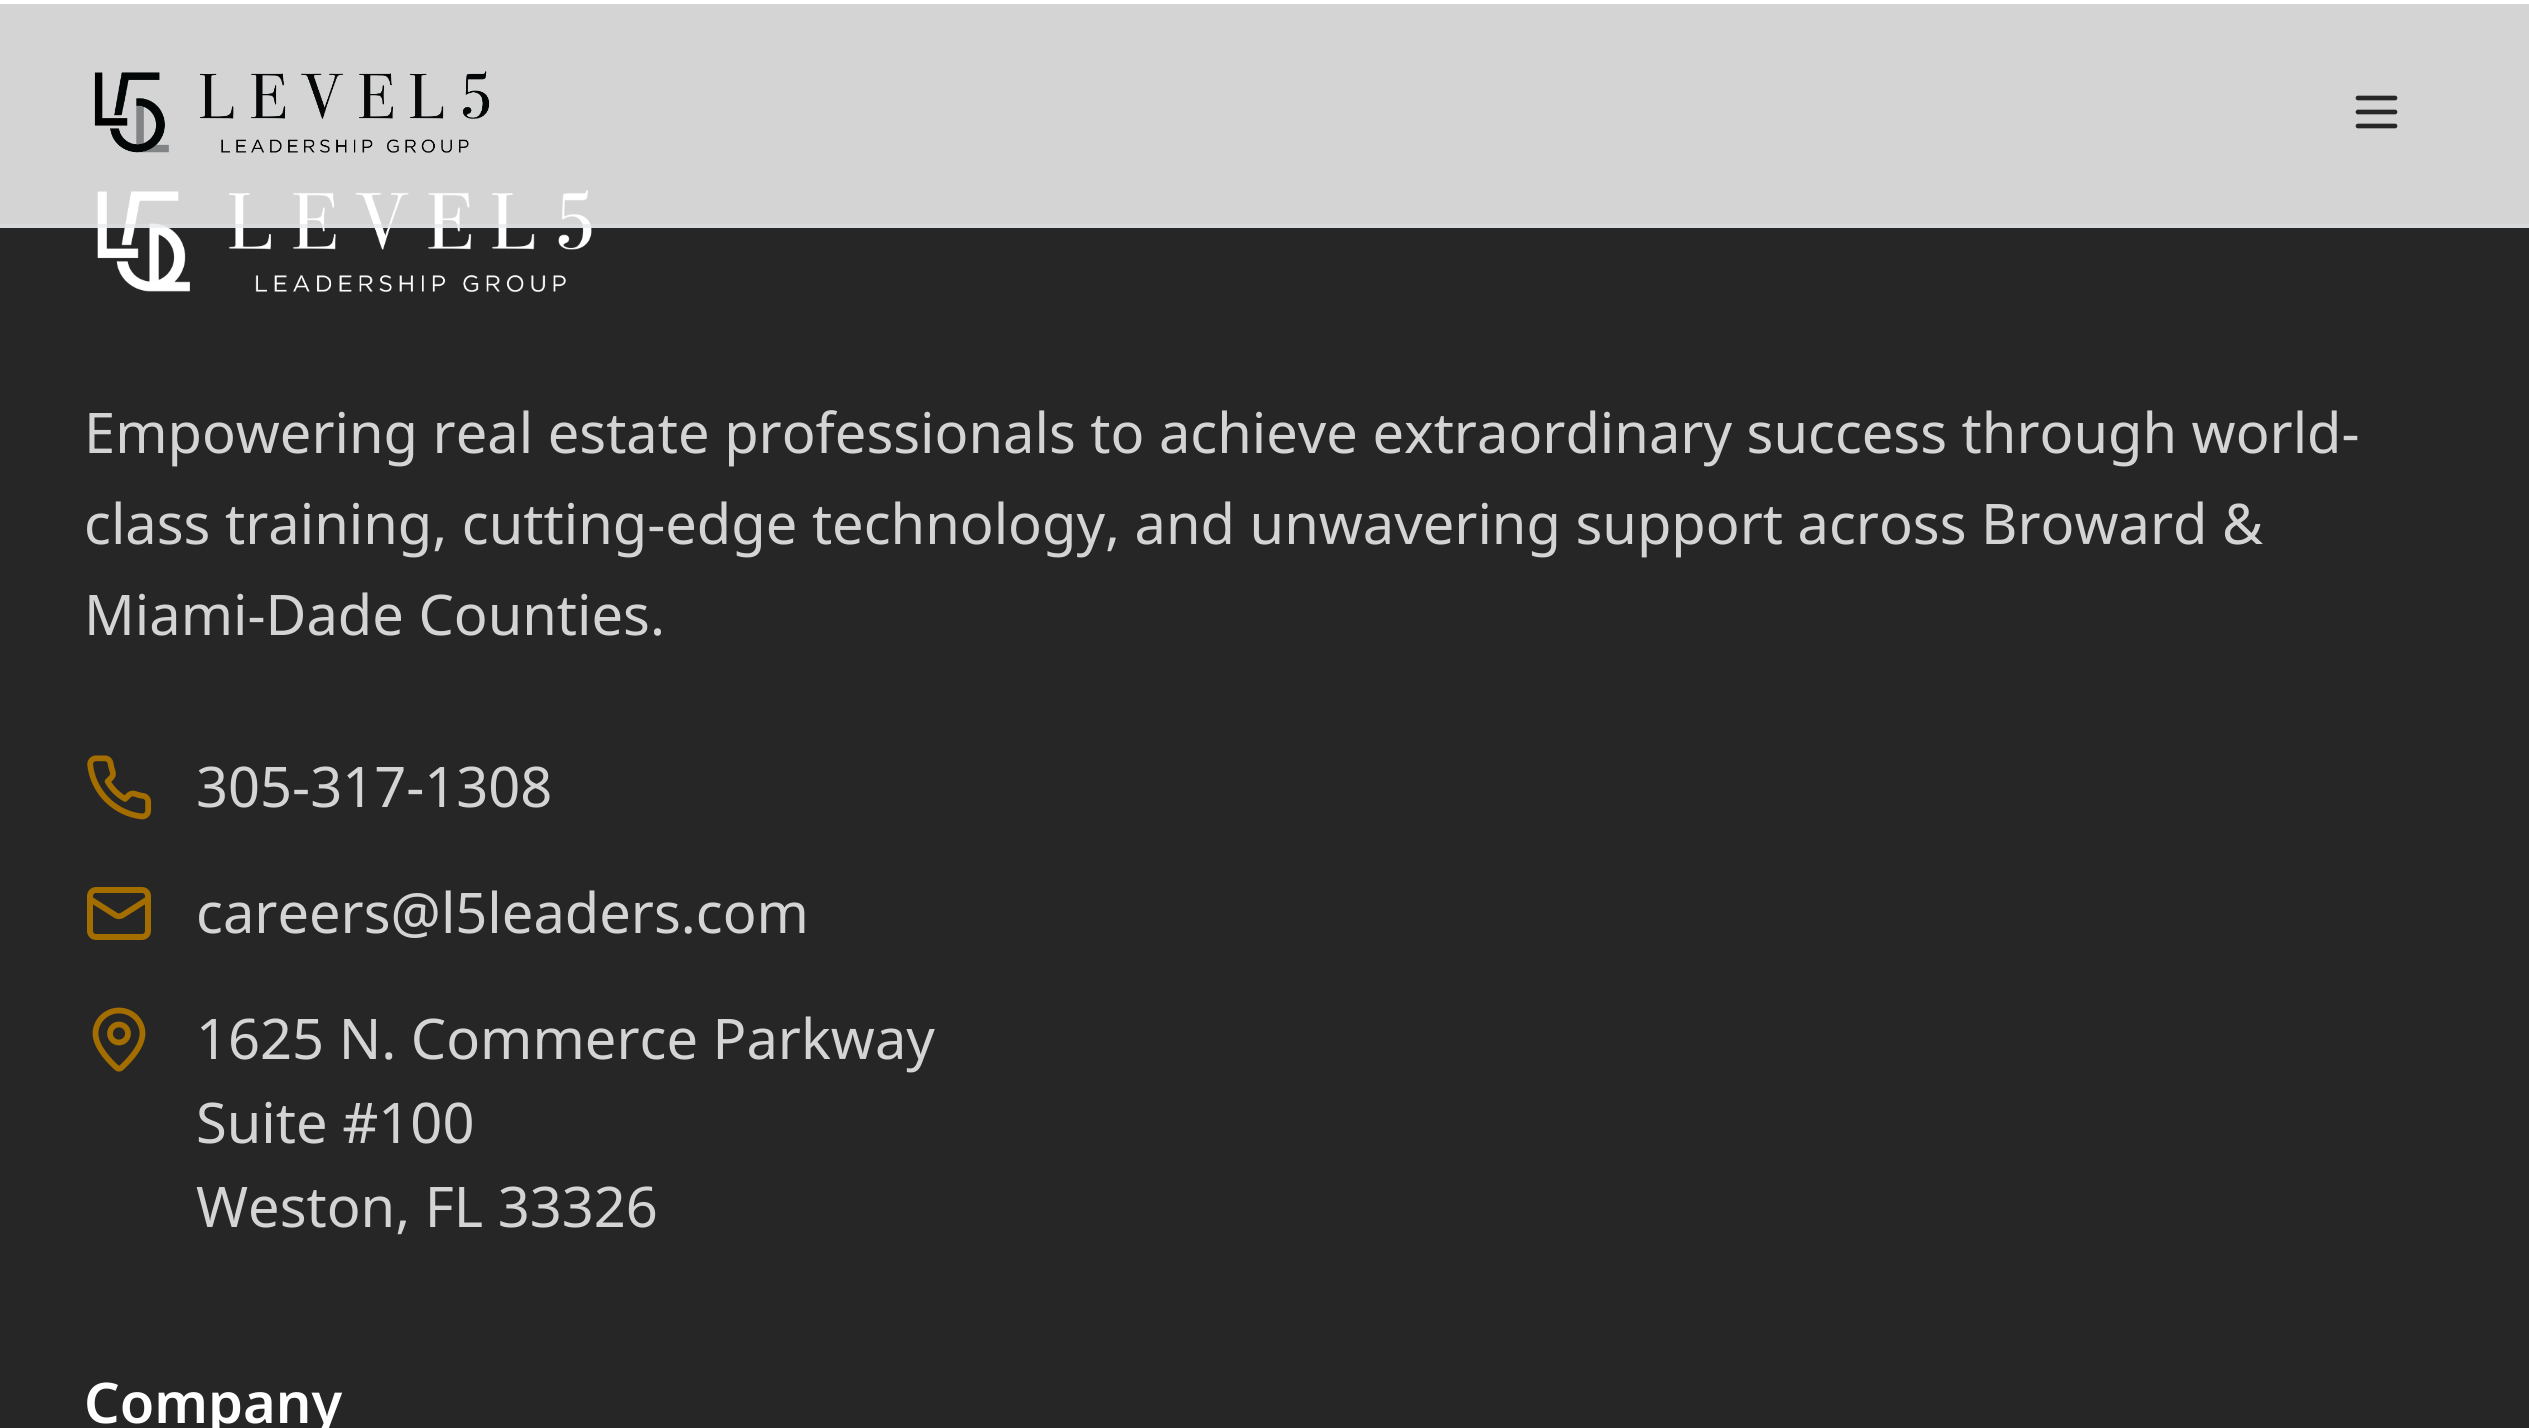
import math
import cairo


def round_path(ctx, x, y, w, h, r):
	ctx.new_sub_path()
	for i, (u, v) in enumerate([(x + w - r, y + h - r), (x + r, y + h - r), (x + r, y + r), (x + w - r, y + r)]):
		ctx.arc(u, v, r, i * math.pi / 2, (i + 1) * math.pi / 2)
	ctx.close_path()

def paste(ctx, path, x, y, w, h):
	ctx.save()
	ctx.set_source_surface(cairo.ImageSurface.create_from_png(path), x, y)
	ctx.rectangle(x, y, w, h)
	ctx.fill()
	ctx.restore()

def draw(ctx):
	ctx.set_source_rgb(1, 1, 1)
	ctx.paint()
	ctx.set_source_rgb(0.149, 0.149, 0.149)
	ctx.rectangle(0, 4, 2529, 1424)
	ctx.fill()
	paste(ctx, 'media/2.png', 97, 190, 495, 102)
	ctx.set_source_rgba(1, 1, 1, 0.8)
	ctx.rectangle(0, 4, 2529, 224)
	ctx.fill()
	ctx.set_source_rgba(0.863, 0.878, 0.898, 0.5)
	ctx.rectangle(0, 224, 2529, 4)
	ctx.fill()
	paste(ctx, 'media/1.png', 94, 71, 396, 82)
	ctx.new_path()
	ctx.move_to(2358, 112)
	ctx.line_to(2395, 112)
	ctx.move_to(2358, 98)
	ctx.line_to(2395, 98)
	ctx.move_to(2358, 126)
	ctx.line_to(2395, 126)
	ctx.set_source_rgb(0.149, 0.149, 0.149)
	ctx.set_line_width(4.7)
	ctx.set_line_cap(cairo.LINE_CAP_ROUND)
	ctx.set_line_join(cairo.LINE_JOIN_ROUND)
	ctx.stroke()
	ctx.select_font_face('Noto Sans')
	ctx.set_font_size(56)
	ctx.set_source_rgb(0.831, 0.831, 0.831)
	for x, y, s in [
		(84, 453, 'Empowering real estate professionals to achieve extraordinary success through world-'),
		(84, 544, 'class training, cutting-edge technology, and unwavering support across Broward &'),
		(84, 635, 'Miami-Dade Counties.'),
	]:
		ctx.move_to(x, y)
		ctx.show_text(s)
	paste(ctx, 'media/3.png', 87, 755, 65, 65)
	ctx.move_to(196, 807)
	ctx.show_text('305-317-1308')
	round_path(ctx, 90, 890, 58, 47, 6)
	ctx.set_source_rgb(0.639, 0.427, 0)
	ctx.set_line_width(6)
	ctx.set_line_cap(cairo.LINE_CAP_BUTT)
	ctx.set_line_join(cairo.LINE_JOIN_MITER)
	ctx.stroke()
	ctx.new_path()
	ctx.move_to(148, 899)
	ctx.line_to(122, 915.5)
	ctx.curve_to(120, 916.5, 118, 916.5, 116, 915.5)
	ctx.line_to(90, 899)
	ctx.set_line_width(5.8)
	ctx.set_line_cap(cairo.LINE_CAP_ROUND)
	ctx.set_line_join(cairo.LINE_JOIN_ROUND)
	ctx.stroke()
	ctx.set_source_rgb(0.831, 0.831, 0.831)
	ctx.move_to(196, 933)
	ctx.show_text('careers@l5leaders.com')
	ctx.new_path()
	ctx.move_to(142.5, 1033.5)
	ctx.curve_to(142.5, 1048, 126, 1063.5, 121, 1068)
	ctx.curve_to(119.5, 1069, 118.5, 1069, 117, 1068)
	ctx.curve_to(112, 1063.5, 95.5, 1048, 95.5, 1033.5)
	ctx.curve_to(95.5, 1021, 106, 1010.5, 119, 1010.5)
	ctx.curve_to(132, 1010.5, 142.5, 1021, 142.5, 1033.5)
	ctx.set_source_rgb(0.639, 0.427, 0)
	ctx.stroke()
	ctx.arc(119, 1033.5, 9, 0, 2 * math.pi)
	ctx.set_line_cap(cairo.LINE_CAP_BUTT)
	ctx.set_line_join(cairo.LINE_JOIN_MITER)
	ctx.stroke()
	ctx.set_source_rgb(0.831, 0.831, 0.831)
	for x, y, s in [
		(196, 1059, '1625 N. Commerce Parkway'),
		(196, 1143, 'Suite #100'),
		(196, 1227, 'Weston, FL 33326'),
	]:
		ctx.move_to(x, y)
		ctx.show_text(s)
	ctx.select_font_face('Noto Sans SemiBold')
	ctx.set_source_rgb(1, 1, 1)
	ctx.move_to(84, 1423)
	ctx.show_text('Company')


surface = cairo.ImageSurface(cairo.FORMAT_RGB24, 2529, 1428)
ctx = cairo.Context(surface)
options = cairo.FontOptions()
options.set_hint_metrics(cairo.HINT_METRICS_OFF)
options.set_hint_style(cairo.HINT_STYLE_NONE)
ctx.set_font_options(options)
ctx.set_miter_limit(4)
draw(ctx)
surface.write_to_png('image.png')
